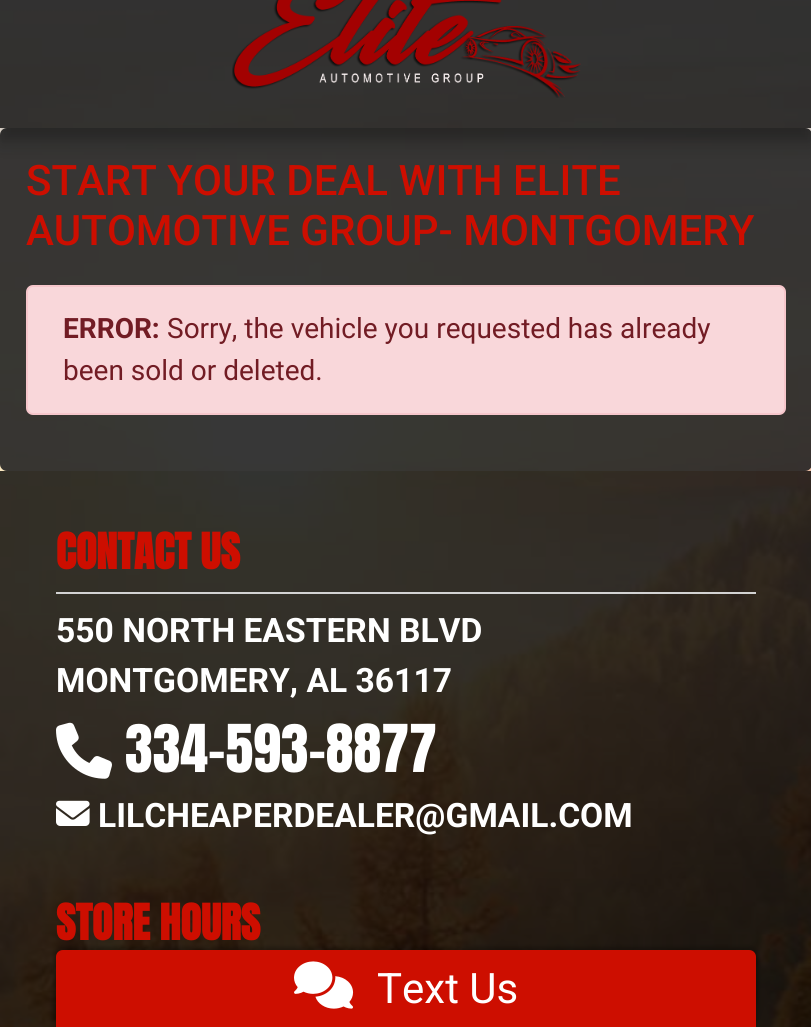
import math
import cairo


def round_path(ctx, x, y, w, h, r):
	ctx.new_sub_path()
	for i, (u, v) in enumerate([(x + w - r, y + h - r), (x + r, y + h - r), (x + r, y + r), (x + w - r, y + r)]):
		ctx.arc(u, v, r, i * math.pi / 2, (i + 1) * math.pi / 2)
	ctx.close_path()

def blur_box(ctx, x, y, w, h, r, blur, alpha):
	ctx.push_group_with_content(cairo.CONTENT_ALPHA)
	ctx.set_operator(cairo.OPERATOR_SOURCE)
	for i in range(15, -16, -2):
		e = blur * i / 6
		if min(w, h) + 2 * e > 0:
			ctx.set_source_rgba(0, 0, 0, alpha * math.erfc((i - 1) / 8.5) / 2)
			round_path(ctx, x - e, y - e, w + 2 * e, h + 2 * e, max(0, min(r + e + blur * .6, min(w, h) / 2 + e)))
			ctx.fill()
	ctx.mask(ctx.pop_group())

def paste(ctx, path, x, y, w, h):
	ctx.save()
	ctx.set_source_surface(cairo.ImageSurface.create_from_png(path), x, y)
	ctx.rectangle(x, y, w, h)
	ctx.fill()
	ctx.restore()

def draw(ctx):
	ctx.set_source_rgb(1, 1, 1)
	ctx.paint()
	paste(ctx, 'media/1.png', 0, 0, 811, 1027)
	ctx.set_source_rgba(0.133, 0.133, 0.133, 0.9)
	round_path(ctx, 0, 128, 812, 343, 7)
	ctx.fill()
	ctx.save()
	ctx.set_fill_rule(cairo.FILL_RULE_EVEN_ODD)
	ctx.new_path()
	ctx.move_to(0, 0)
	ctx.line_to(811, 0)
	ctx.line_to(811, 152)
	ctx.line_to(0, 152)
	ctx.close_path()
	ctx.move_to(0, -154)
	ctx.line_to(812, -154)
	ctx.line_to(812, 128)
	ctx.line_to(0, 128)
	ctx.close_path()
	ctx.clip()
	ctx.set_source_rgb(0, 0, 0)
	blur_box(ctx, 0, -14, 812, 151, 0, 4.5, 0.1)
	ctx.restore()
	ctx.save()
	ctx.set_fill_rule(cairo.FILL_RULE_EVEN_ODD)
	ctx.new_path()
	ctx.move_to(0, 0)
	ctx.line_to(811, 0)
	ctx.line_to(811, 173)
	ctx.line_to(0, 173)
	ctx.close_path()
	ctx.move_to(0, -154)
	ctx.line_to(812, -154)
	ctx.line_to(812, 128)
	ctx.line_to(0, 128)
	ctx.close_path()
	ctx.clip()
	ctx.set_source_rgb(0, 0, 0)
	blur_box(ctx, 0, -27, 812, 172, 0, 9, 0.2)
	ctx.restore()
	ctx.set_source_rgba(0, 0, 0, 0.8)
	ctx.rectangle(0, 0, 811, 128)
	ctx.fill()
	paste(ctx, 'media/2.png', 232, 0, 349, 98)
	ctx.select_font_face('Roboto Medium')
	ctx.set_font_size(42)
	ctx.set_source_rgb(0.804, 0.055, 0)
	ctx.move_to(26, 195)
	ctx.show_text('START YOUR DEAL WITH ELITE')
	ctx.move_to(26, 245)
	ctx.show_text('AUTOMOTIVE GROUP- MONTGOMERY')
	ctx.set_source_rgb(0.973, 0.843, 0.855)
	round_path(ctx, 27, 286, 758, 128, 6)
	ctx.fill_preserve()
	ctx.set_source_rgb(0.961, 0.776, 0.796)
	ctx.stroke()
	ctx.select_font_face('Roboto', cairo.FONT_SLANT_NORMAL, cairo.FONT_WEIGHT_BOLD)
	ctx.set_font_size(28)
	ctx.set_source_rgb(0.447, 0.11, 0.141)
	ctx.move_to(63, 338)
	ctx.show_text('ERROR:')
	ctx.select_font_face('Roboto')
	ctx.move_to(167, 338)
	ctx.show_text('Sorry, the vehicle you requested has already')
	ctx.move_to(63, 380)
	ctx.show_text('been sold or deleted.')
	ctx.set_source_rgba(0, 0, 0, 0.8)
	ctx.rectangle(0, 471, 811, 556)
	ctx.fill()
	ctx.set_source_rgb(0.827, 0.827, 0.827)
	ctx.rectangle(56, 592, 700, 2)
	ctx.fill()
	ctx.select_font_face('Anton', cairo.FONT_SLANT_NORMAL, cairo.FONT_WEIGHT_BOLD)
	ctx.set_font_size(42)
	ctx.set_source_rgb(0.804, 0.055, 0)
	ctx.move_to(56, 569)
	ctx.show_text('CONTACT US')
	ctx.select_font_face('Roboto', cairo.FONT_SLANT_NORMAL, cairo.FONT_WEIGHT_BOLD)
	ctx.set_font_size(33.6)
	ctx.set_source_rgb(1, 1, 1)
	ctx.move_to(56, 642)
	ctx.show_text('550 NORTH EASTERN BLVD')
	ctx.move_to(56, 692)
	ctx.show_text('MONTGOMERY, AL 36117')
	paste(ctx, 'media/3.png', 56, 722, 56, 57)
	ctx.select_font_face('Anton')
	ctx.set_font_size(56)
	ctx.move_to(125, 772)
	ctx.show_text('334-593-8877')
	paste(ctx, 'media/4.png', 56, 800, 34, 26)
	ctx.select_font_face('Roboto', cairo.FONT_SLANT_NORMAL, cairo.FONT_WEIGHT_BOLD)
	ctx.set_font_size(33.6)
	ctx.move_to(98, 827)
	ctx.show_text('LILCHEAPERDEALER@GMAIL.COM')
	ctx.select_font_face('Anton', cairo.FONT_SLANT_NORMAL, cairo.FONT_WEIGHT_BOLD)
	ctx.set_font_size(42)
	ctx.set_source_rgb(0.804, 0.055, 0)
	ctx.move_to(56, 940)
	ctx.show_text('STORE HOURS')
	ctx.set_source_rgb(0, 0, 0)
	blur_box(ctx, 54, 947, 704, 80, 9, 2, 0.25)
	ctx.set_source_rgb(0.804, 0.055, 0)
	ctx.new_path()
	ctx.move_to(63, 950)
	ctx.line_to(749, 950)
	ctx.curve_to(753, 950, 756, 953, 756, 957)
	ctx.line_to(756, 1027)
	ctx.line_to(56, 1027)
	ctx.line_to(56, 957)
	ctx.curve_to(56, 953, 59, 950, 63, 950)
	ctx.close_path()
	ctx.fill()
	paste(ctx, 'media/5.png', 294, 961, 60, 48)
	ctx.select_font_face('Roboto')
	ctx.set_source_rgb(1, 1, 1)
	ctx.move_to(377, 1003)
	ctx.show_text('Text Us')


surface = cairo.ImageSurface(cairo.FORMAT_RGB24, 811, 1027)
ctx = cairo.Context(surface)
options = cairo.FontOptions()
options.set_hint_metrics(cairo.HINT_METRICS_OFF)
options.set_hint_style(cairo.HINT_STYLE_NONE)
ctx.set_font_options(options)
ctx.set_miter_limit(4)
draw(ctx)
surface.write_to_png('image.png')
